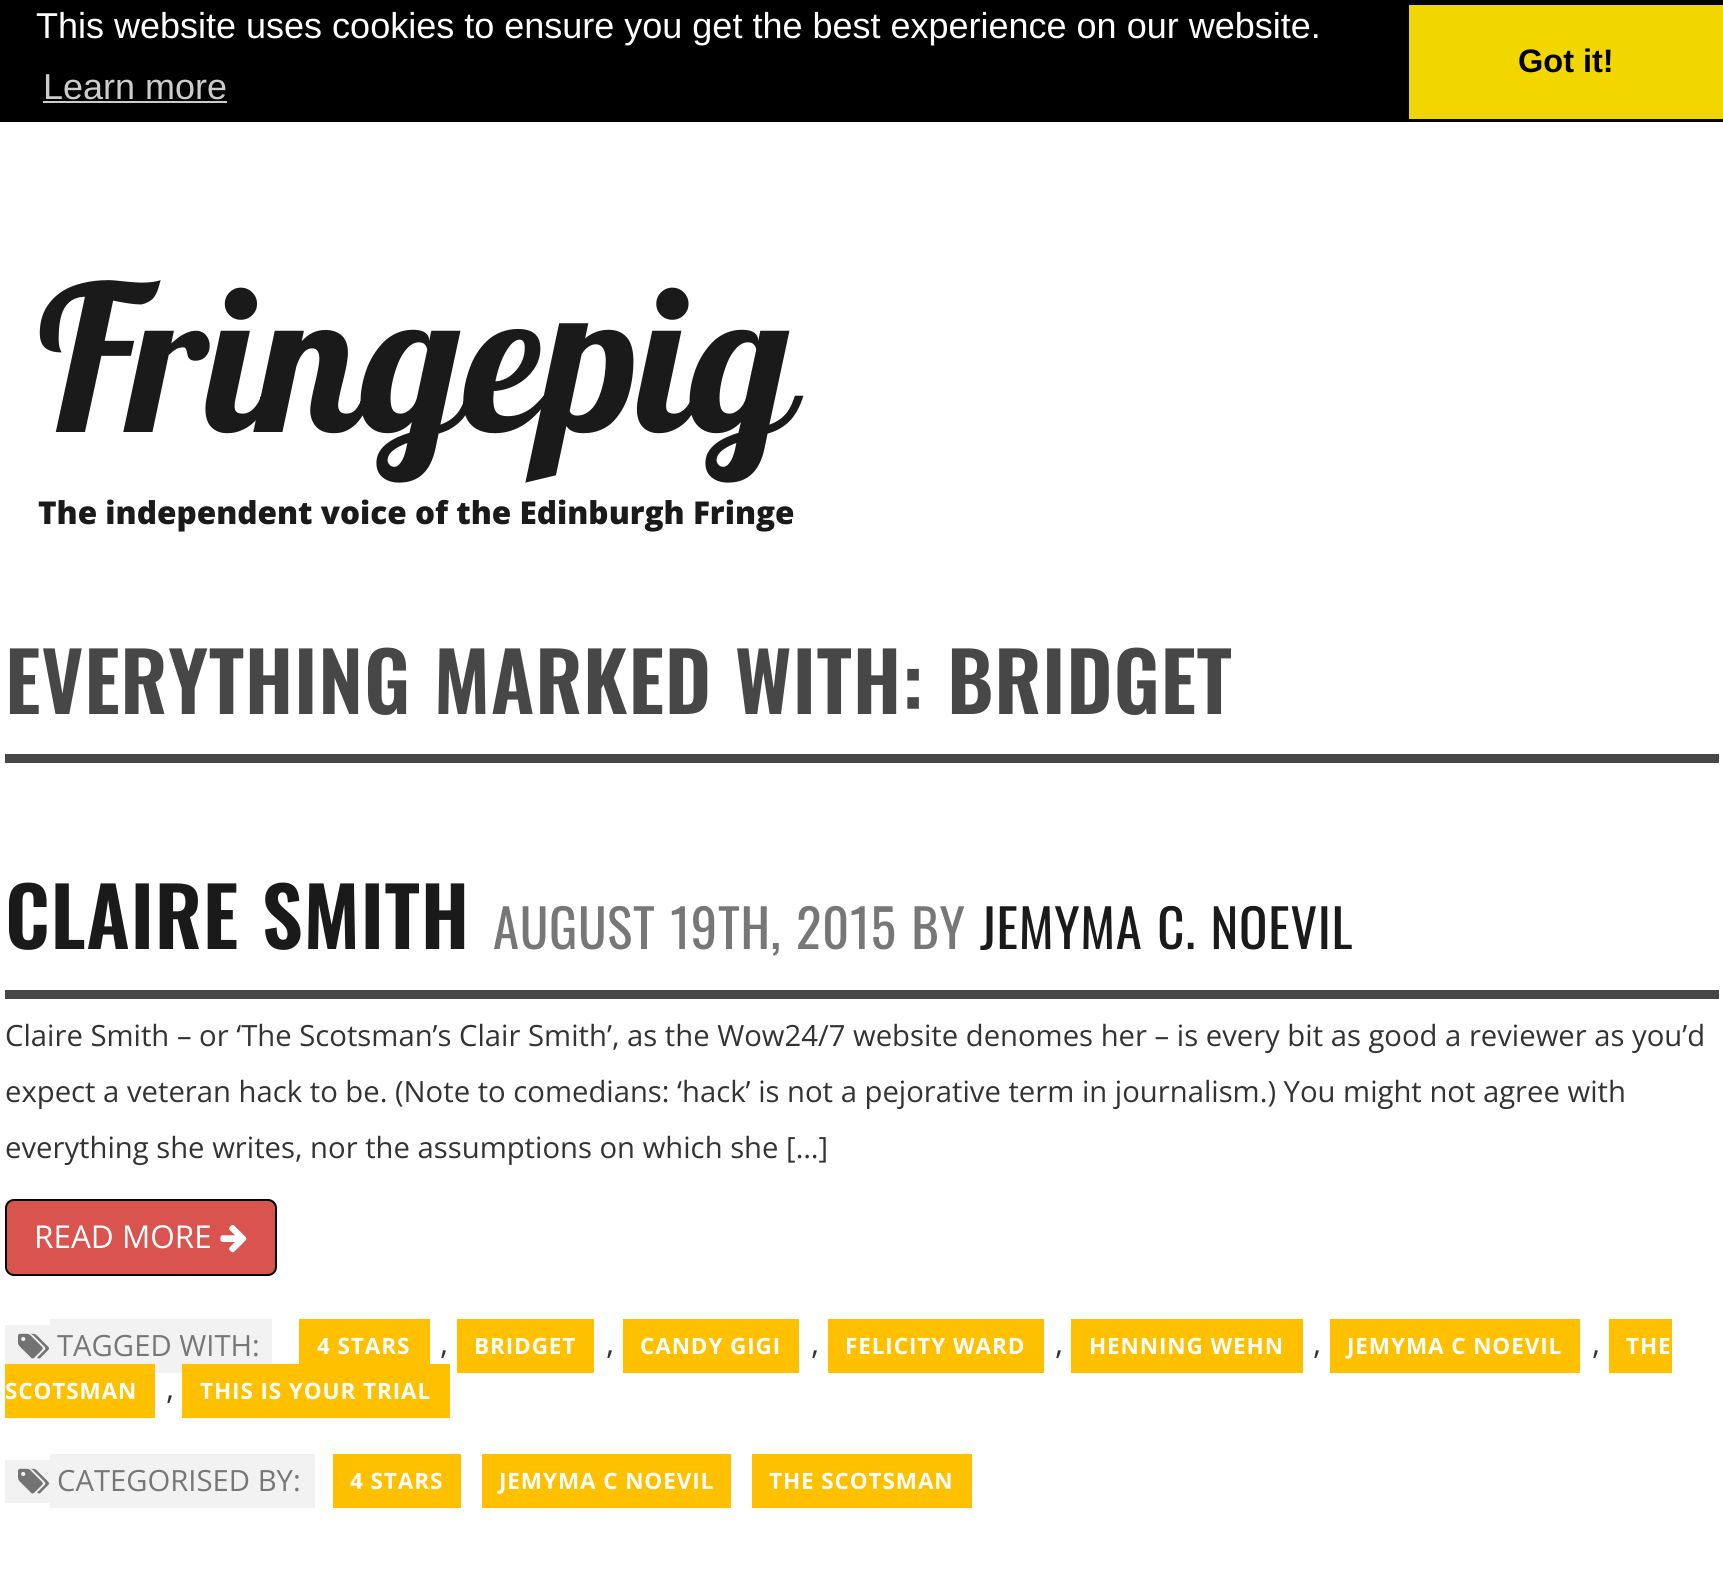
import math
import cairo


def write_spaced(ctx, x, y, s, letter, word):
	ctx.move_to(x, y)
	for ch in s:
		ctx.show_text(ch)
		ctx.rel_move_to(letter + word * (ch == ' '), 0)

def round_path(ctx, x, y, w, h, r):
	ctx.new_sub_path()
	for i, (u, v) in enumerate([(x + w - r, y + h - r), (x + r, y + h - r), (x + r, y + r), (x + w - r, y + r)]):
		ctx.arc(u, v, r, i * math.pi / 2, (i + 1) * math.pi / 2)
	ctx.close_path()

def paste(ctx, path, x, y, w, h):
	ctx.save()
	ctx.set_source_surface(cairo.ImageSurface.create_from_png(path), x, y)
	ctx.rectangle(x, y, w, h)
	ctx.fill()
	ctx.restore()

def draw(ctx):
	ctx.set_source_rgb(1, 1, 1)
	ctx.paint()
	ctx.set_source_rgb(0, 0, 0)
	ctx.rectangle(0, 0, 1723, 122)
	ctx.fill()
	ctx.select_font_face('Liberation Sans')
	ctx.set_font_size(36)
	ctx.set_source_rgb(1, 1, 1)
	ctx.move_to(36, 38)
	ctx.show_text('This website uses cookies to ensure you get the best experience on our website.')
	ctx.set_source_rgb(0.8, 0.8, 0.8)
	ctx.move_to(43, 99)
	ctx.show_text('Learn more')
	ctx.rectangle(43, 101, 184, 2)
	ctx.fill()
	ctx.set_source_rgb(0.945, 0.839, 0)
	ctx.rectangle(1409, 5, 314, 114)
	ctx.fill()
	ctx.select_font_face('Liberation Sans', cairo.FONT_SLANT_NORMAL, cairo.FONT_WEIGHT_BOLD)
	ctx.set_font_size(32.5)
	ctx.set_source_rgb(0, 0, 0)
	ctx.move_to(1518, 72)
	ctx.show_text('Got it!')
	ctx.select_font_face('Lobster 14')
	ctx.set_font_size(202.5)
	ctx.set_source_rgb(0.102, 0.102, 0.102)
	ctx.move_to(38, 432)
	ctx.show_text('Fringepig')
	ctx.select_font_face('Open Sans ExtraBold')
	ctx.set_font_size(31.5)
	ctx.move_to(38, 524)
	ctx.show_text('The independent voice of the Edinburgh Fringe')
	ctx.set_source_rgb(0.278, 0.278, 0.278)
	ctx.rectangle(5, 754, 1714, 9)
	ctx.fill()
	ctx.select_font_face('Oswald SemiBold')
	ctx.set_font_size(81)
	write_spaced(ctx, 5, 714, 'EVERYTHING MARKED WITH:', 0.7, 2)
	write_spaced(ctx, 947, 714, 'BRIDGET', 0.7, 0)
	ctx.rectangle(5, 990, 1714, 9)
	ctx.fill()
	ctx.set_source_rgb(0.102, 0.102, 0.102)
	write_spaced(ctx, 5, 949, 'CLAIRE SMITH', 0.7, 2)
	ctx.select_font_face('Oswald')
	ctx.set_font_size(52.75)
	ctx.set_source_rgb(0.467, 0.467, 0.467)
	write_spaced(ctx, 493, 949, 'AUGUST 19TH, 2015 BY', 0.7, 2)
	ctx.set_source_rgb(0.102, 0.102, 0.102)
	write_spaced(ctx, 980, 949, 'JEMYMA C. NOEVIL', 0.7, 2)
	ctx.select_font_face('Open Sans')
	ctx.set_font_size(29.25)
	ctx.set_source_rgb(0.2, 0.2, 0.2)
	for x, y, s in [
		(5, 1046, 'Claire Smith – or ‘The Scotsman’s Clair Smith’, as the Wow24/7 website denomes her – is every bit as good a reviewer as you’d'),
		(5, 1102, 'expect a veteran hack to be. (Note to comedians: ‘hack’ is not a pejorative term in journalism.) You might not agree with'),
		(5, 1158, 'everything she writes, nor the assumptions on which she […]'),
	]:
		ctx.move_to(x, y)
		ctx.show_text(s)
	ctx.set_source_rgb(0.851, 0.325, 0.31)
	round_path(ctx, 6, 1200, 270, 75, 8)
	ctx.fill_preserve()
	ctx.set_source_rgb(0, 0, 0)
	ctx.stroke()
	ctx.set_font_size(31.5)
	ctx.set_source_rgb(1, 1, 1)
	ctx.move_to(34, 1248)
	ctx.show_text('READ MORE')
	paste(ctx, 'media/1.png', 220, 1224, 27, 29)
	ctx.set_source_rgb(0.949, 0.949, 0.949)
	ctx.rectangle(5, 1325, 45, 39)
	ctx.fill()
	ctx.rectangle(50, 1319, 222, 54)
	ctx.fill()
	paste(ctx, 'media/2.png', 18, 1333, 31, 26)
	ctx.set_font_size(29.25)
	ctx.set_source_rgb(0.467, 0.467, 0.467)
	ctx.move_to(57, 1356)
	ctx.show_text('TAGGED WITH:')
	ctx.set_source_rgb(1, 0.753, 0)
	ctx.rectangle(299, 1319, 131, 45)
	ctx.fill()
	ctx.select_font_face('Open Sans', cairo.FONT_SLANT_NORMAL, cairo.FONT_WEIGHT_BOLD)
	ctx.set_font_size(22.5)
	ctx.set_source_rgb(1, 1, 1)
	write_spaced(ctx, 317, 1354, '4 STARS', 0.9, 0)
	ctx.select_font_face('Open Sans')
	ctx.set_font_size(31.5)
	ctx.set_source_rgb(0.2, 0.2, 0.2)
	ctx.move_to(440, 1354)
	ctx.show_text(',')
	ctx.set_source_rgb(1, 0.753, 0)
	ctx.rectangle(457, 1319, 137, 54)
	ctx.fill()
	ctx.select_font_face('Open Sans', cairo.FONT_SLANT_NORMAL, cairo.FONT_WEIGHT_BOLD)
	ctx.set_font_size(22.5)
	ctx.set_source_rgb(1, 1, 1)
	write_spaced(ctx, 474, 1354, 'BRIDGET', 0.9, 0)
	ctx.select_font_face('Open Sans')
	ctx.set_font_size(31.5)
	ctx.set_source_rgb(0.2, 0.2, 0.2)
	ctx.move_to(606, 1354)
	ctx.show_text(',')
	ctx.set_source_rgb(1, 0.753, 0)
	ctx.rectangle(623, 1319, 176, 54)
	ctx.fill()
	ctx.select_font_face('Open Sans', cairo.FONT_SLANT_NORMAL, cairo.FONT_WEIGHT_BOLD)
	ctx.set_font_size(22.5)
	ctx.set_source_rgb(1, 1, 1)
	write_spaced(ctx, 640, 1354, 'CANDY GIGI', 0.9, 0)
	ctx.select_font_face('Open Sans')
	ctx.set_font_size(31.5)
	ctx.set_source_rgb(0.2, 0.2, 0.2)
	ctx.move_to(811, 1354)
	ctx.show_text(',')
	ctx.set_source_rgb(1, 0.753, 0)
	ctx.rectangle(828, 1319, 216, 54)
	ctx.fill()
	ctx.select_font_face('Open Sans', cairo.FONT_SLANT_NORMAL, cairo.FONT_WEIGHT_BOLD)
	ctx.set_font_size(22.5)
	ctx.set_source_rgb(1, 1, 1)
	write_spaced(ctx, 845, 1354, 'FELICITY WARD', 0.9, 0)
	ctx.select_font_face('Open Sans')
	ctx.set_font_size(31.5)
	ctx.set_source_rgb(0.2, 0.2, 0.2)
	ctx.move_to(1055, 1354)
	ctx.show_text(',')
	ctx.set_source_rgb(1, 0.753, 0)
	ctx.rectangle(1071, 1319, 232, 54)
	ctx.fill()
	ctx.select_font_face('Open Sans', cairo.FONT_SLANT_NORMAL, cairo.FONT_WEIGHT_BOLD)
	ctx.set_font_size(22.5)
	ctx.set_source_rgb(1, 1, 1)
	write_spaced(ctx, 1089, 1354, 'HENNING WEHN', 0.9, 0)
	ctx.select_font_face('Open Sans')
	ctx.set_font_size(31.5)
	ctx.set_source_rgb(0.2, 0.2, 0.2)
	ctx.move_to(1313, 1354)
	ctx.show_text(',')
	ctx.set_source_rgb(1, 0.753, 0)
	ctx.rectangle(1330, 1319, 250, 54)
	ctx.fill()
	ctx.select_font_face('Open Sans', cairo.FONT_SLANT_NORMAL, cairo.FONT_WEIGHT_BOLD)
	ctx.set_font_size(22.5)
	ctx.set_source_rgb(1, 1, 1)
	write_spaced(ctx, 1347, 1354, 'JEMYMA C NOEVIL', 0.9, 0)
	ctx.select_font_face('Open Sans')
	ctx.set_font_size(31.5)
	ctx.set_source_rgb(0.2, 0.2, 0.2)
	ctx.move_to(1592, 1354)
	ctx.show_text(',')
	ctx.set_source_rgb(1, 0.753, 0)
	ctx.rectangle(1609, 1319, 63, 54)
	ctx.fill()
	ctx.select_font_face('Open Sans', cairo.FONT_SLANT_NORMAL, cairo.FONT_WEIGHT_BOLD)
	ctx.set_font_size(22.5)
	ctx.set_source_rgb(1, 1, 1)
	write_spaced(ctx, 1626, 1354, 'THE', 0.9, 0)
	ctx.set_source_rgb(1, 0.753, 0)
	ctx.rectangle(5, 1364, 150, 54)
	ctx.fill()
	ctx.set_source_rgb(1, 1, 1)
	write_spaced(ctx, 5, 1399, 'SCOTSMAN', 0.9, 0)
	ctx.select_font_face('Open Sans')
	ctx.set_font_size(31.5)
	ctx.set_source_rgb(0.2, 0.2, 0.2)
	ctx.move_to(166, 1399)
	ctx.show_text(',')
	ctx.set_source_rgb(1, 0.753, 0)
	ctx.rectangle(182, 1364, 268, 54)
	ctx.fill()
	ctx.select_font_face('Open Sans', cairo.FONT_SLANT_NORMAL, cairo.FONT_WEIGHT_BOLD)
	ctx.set_font_size(22.5)
	ctx.set_source_rgb(1, 1, 1)
	write_spaced(ctx, 200, 1399, 'THIS IS YOUR TRIAL', 0.9, 0)
	ctx.set_source_rgb(0.949, 0.949, 0.949)
	ctx.rectangle(5, 1460, 45, 43)
	ctx.fill()
	ctx.rectangle(50, 1454, 265, 54)
	ctx.fill()
	paste(ctx, 'media/2.png', 18, 1468, 31, 26)
	ctx.select_font_face('Open Sans')
	ctx.set_font_size(29.25)
	ctx.set_source_rgb(0.467, 0.467, 0.467)
	ctx.move_to(57, 1491)
	ctx.show_text('CATEGORISED BY:')
	ctx.set_source_rgb(1, 0.753, 0)
	ctx.rectangle(333, 1454, 128, 54)
	ctx.fill()
	ctx.select_font_face('Open Sans', cairo.FONT_SLANT_NORMAL, cairo.FONT_WEIGHT_BOLD)
	ctx.set_font_size(22.5)
	ctx.set_source_rgb(1, 1, 1)
	write_spaced(ctx, 350, 1489, '4 STARS', 0.9, 0)
	ctx.set_source_rgb(1, 0.753, 0)
	ctx.rectangle(482, 1454, 249, 54)
	ctx.fill()
	ctx.set_source_rgb(1, 1, 1)
	write_spaced(ctx, 499, 1489, 'JEMYMA C NOEVIL', 0.9, 0)
	ctx.set_source_rgb(1, 0.753, 0)
	ctx.rectangle(752, 1454, 220, 54)
	ctx.fill()
	ctx.set_source_rgb(1, 1, 1)
	write_spaced(ctx, 769, 1489, 'THE SCOTSMAN', 0.9, 0)


surface = cairo.ImageSurface(cairo.FORMAT_RGB24, 1723, 1581)
ctx = cairo.Context(surface)
options = cairo.FontOptions()
options.set_hint_metrics(cairo.HINT_METRICS_OFF)
options.set_hint_style(cairo.HINT_STYLE_NONE)
ctx.set_font_options(options)
ctx.set_miter_limit(4)
draw(ctx)
surface.write_to_png('image.png')
